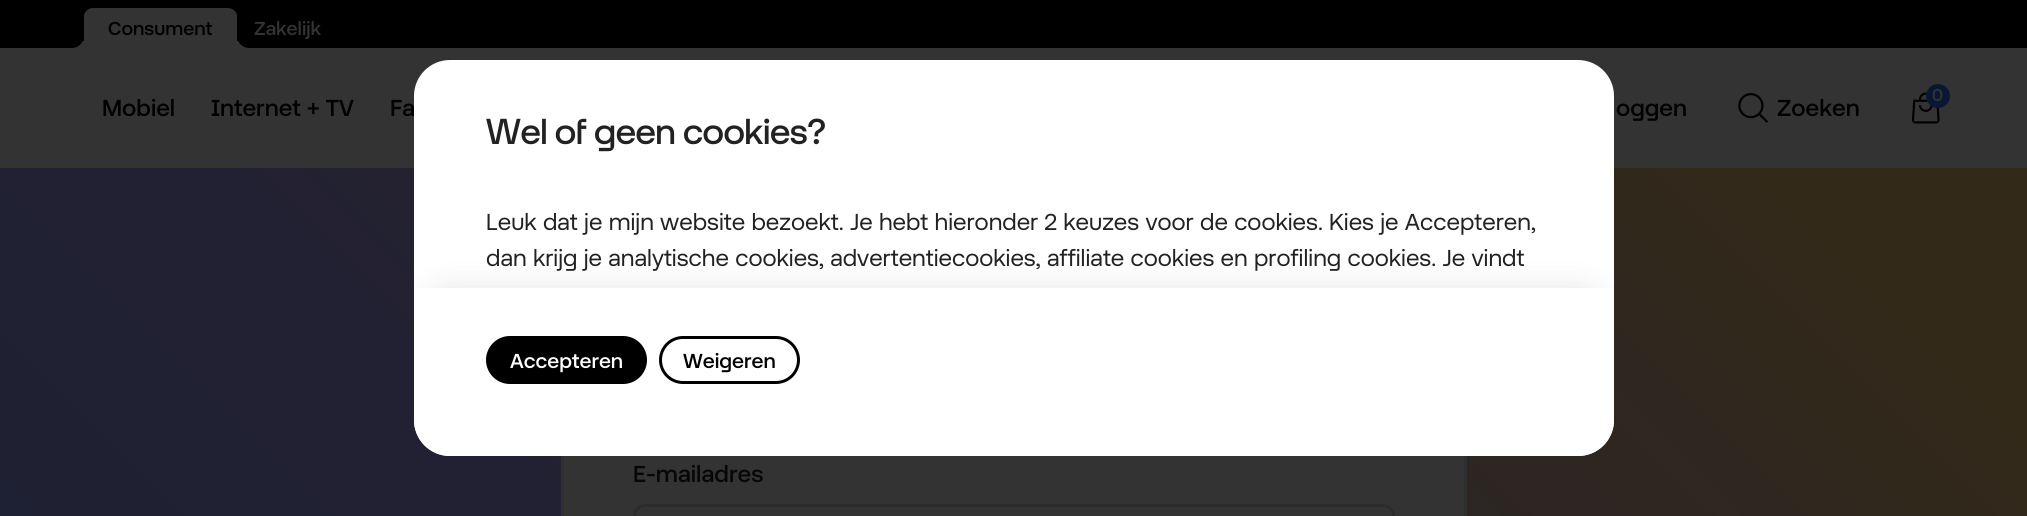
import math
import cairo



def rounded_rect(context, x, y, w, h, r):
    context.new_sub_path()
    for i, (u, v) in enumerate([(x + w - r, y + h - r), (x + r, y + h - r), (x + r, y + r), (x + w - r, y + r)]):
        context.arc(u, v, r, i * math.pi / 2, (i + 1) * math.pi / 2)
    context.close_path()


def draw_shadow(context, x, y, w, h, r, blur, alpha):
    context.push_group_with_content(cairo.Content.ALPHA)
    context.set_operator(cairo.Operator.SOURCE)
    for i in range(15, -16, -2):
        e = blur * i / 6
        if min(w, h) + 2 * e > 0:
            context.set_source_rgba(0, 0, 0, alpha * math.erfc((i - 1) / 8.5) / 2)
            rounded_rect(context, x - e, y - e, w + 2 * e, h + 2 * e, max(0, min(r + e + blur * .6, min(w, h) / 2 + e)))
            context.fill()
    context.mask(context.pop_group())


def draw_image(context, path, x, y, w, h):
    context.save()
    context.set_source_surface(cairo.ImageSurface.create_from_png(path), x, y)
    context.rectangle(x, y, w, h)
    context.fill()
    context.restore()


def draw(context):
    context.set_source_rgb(51 / 255, 51 / 255, 51 / 255)
    context.paint()
    context.set_source_rgb(0, 0, 0)
    context.rectangle(66, 0, 255, 8)
    context.fill()
    context.rectangle(0, 0, 66, 48)
    context.fill()
    context.new_path()
    context.move_to(66, 8)
    context.line_to(84, 8)
    context.line_to(84, 36)
    context.curve_to(84, 42.5, 78.5, 48, 72, 48)
    context.line_to(66, 48)
    context.close_path()
    context.fill()
    context.new_path()
    context.move_to(237, 8)
    context.line_to(255, 8)
    context.line_to(255, 48)
    context.line_to(249, 48)
    context.curve_to(242.5, 48, 237, 42.5, 237, 36)
    context.close_path()
    context.fill()
    context.save()
    context.rectangle(66, 8, 189, 40)
    context.clip()
    context.new_path()
    context.move_to(94, -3)
    context.curve_to(88, -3, 83, 2, 83, 8)
    context.line_to(83, 41)
    context.line_to(84, 41)
    context.line_to(84, 16)
    context.curve_to(84, 12, 88, 8, 93, 8)
    context.line_to(228, 8)
    context.curve_to(233, 8, 237, 12, 237, 16)
    context.line_to(237, 41)
    context.line_to(239, 41)
    context.line_to(239, 8)
    context.curve_to(239, 2, 234, -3, 228, -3)
    context.close_path()
    context.fill()
    context.restore()
    context.rectangle(255, 8, 65, 40)
    context.fill()
    context.rectangle(320, 0, 1707, 48)
    context.fill()
    draw_image(context, "images/1.png", 1911, 92, 29, 32)
    context.set_source_rgb(9 / 255, 23 / 255, 51 / 255)
    context.arc(1938, 96, 12, 0, 2 * math.pi)
    context.fill()
    draw_image(context, "images/2.png", 1738, 93, 31, 30)
    gradient = cairo.LinearGradient(1770, -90, 258, 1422)
    gradient.add_color_stop_rgba(0.08, 51 / 255, 41 / 255, 25 / 255, 1)
    gradient.add_color_stop_rgba(0.6, 34 / 255, 33 / 255, 51 / 255, 1)
    gradient.add_color_stop_rgba(1, 26 / 255, 34 / 255, 51 / 255, 1)
    context.set_source(gradient)
    context.rectangle(0, 168, 2027, 348)
    context.fill()
    context.set_source_rgb(51 / 255, 51 / 255, 51 / 255)
    context.rectangle(564, 456, 900, 60)
    context.fill()
    context.rectangle(562.5, 313.5, 903, 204)
    context.set_source_rgb(47 / 255, 47 / 255, 47 / 255)
    context.set_line_width(3)
    context.stroke()
    rounded_rect(context, 634.5, 505.5, 759, 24, 10.5)
    context.set_source_rgb(44 / 255, 44 / 255, 44 / 255)
    context.stroke()
    context.select_font_face("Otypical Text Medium")
    context.set_font_size(19.5)
    context.set_source_rgb(0, 0, 0)
    context.move_to(108, 35)
    context.show_text("Consument")
    context.set_source_rgb(51 / 255, 51 / 255, 51 / 255)
    context.move_to(254, 35)
    context.show_text("Zakelijk")
    context.set_font_size(24)
    context.set_source_rgb(0, 0, 0)
    context.move_to(102, 116)
    context.show_text("Mobiel")
    context.move_to(211, 116)
    context.show_text("Internet + TV")
    context.move_to(390, 116)
    context.show_text("Fa")
    context.set_font_size(18)
    context.set_source_rgb(51 / 255, 51 / 255, 51 / 255)
    context.move_to(1932, 101)
    context.show_text("0")
    context.set_font_size(24)
    context.set_source_rgb(0, 0, 0)
    context.move_to(1616, 116)
    context.show_text("oggen")
    context.move_to(1777, 116)
    context.show_text("Zoeken")
    context.set_source_rgb(1, 1, 1)
    rounded_rect(context, 414, 60, 1200, 396, 36)
    context.fill()
    context.select_font_face("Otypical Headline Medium")
    context.set_font_size(36)
    context.set_source_rgb(34 / 255, 34 / 255, 34 / 255)
    context.move_to(486, 144)
    context.show_text("Wel of geen cookies?")
    context.select_font_face("Otypical Text")
    context.set_font_size(24)
    context.move_to(486, 230)
    context.show_text("Leuk dat je mijn website bezoekt. Je hebt hieronder 2 keuzes voor de cookies. Kies je Accepteren,")
    context.save()
    rounded_rect(context, 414, 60, 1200, 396, 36)
    context.clip()
    context.set_source_rgb(0, 0, 0)
    draw_shadow(context, 414, 288, 1200, 168, 36, 15, 0.1)
    context.restore()
    context.move_to(486, 266)
    context.show_text("dan krijg je analytische cookies, advertentiecookies, affiliate cookies en profiling cookies. Je vindt")
    context.set_source_rgb(1, 1, 1)
    context.new_path()
    context.move_to(414, 288)
    context.line_to(1614, 288)
    context.line_to(1614, 420)
    context.curve_to(1614, 440, 1598, 456, 1578, 456)
    context.line_to(450, 456)
    context.curve_to(430, 456, 414, 440, 414, 420)
    context.close_path()
    context.fill()
    context.set_source_rgb(0, 0, 0)
    rounded_rect(context, 486, 336, 161, 48, 24)
    context.fill()
    context.select_font_face("Otypical Text Medium")
    context.set_font_size(21)
    context.set_source_rgb(1, 1, 1)
    context.move_to(510, 368)
    context.show_text("Accepteren")
    rounded_rect(context, 660.5, 337.5, 138, 45, 22.5)
    context.set_source_rgb(0, 0, 0)
    context.stroke()
    context.move_to(683, 368)
    context.show_text("Weigeren")
    context.set_font_size(24)
    context.set_source_rgb(7 / 255, 7 / 255, 7 / 255)
    context.move_to(633, 482)
    context.show_text("E-mailadres")


surface = cairo.ImageSurface(cairo.Format.RGB24, 2027, 516)
context = cairo.Context(surface)
options = cairo.FontOptions()
options.set_hint_metrics(cairo.HintMetrics.OFF)
options.set_hint_style(cairo.HintStyle.NONE)
context.set_font_options(options)
context.set_miter_limit(4)
draw(context)
surface.write_to_png("out.png")
